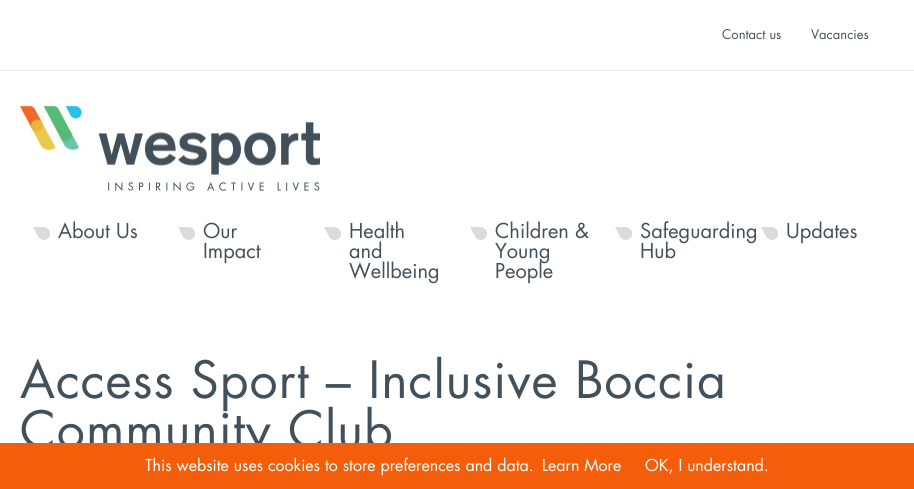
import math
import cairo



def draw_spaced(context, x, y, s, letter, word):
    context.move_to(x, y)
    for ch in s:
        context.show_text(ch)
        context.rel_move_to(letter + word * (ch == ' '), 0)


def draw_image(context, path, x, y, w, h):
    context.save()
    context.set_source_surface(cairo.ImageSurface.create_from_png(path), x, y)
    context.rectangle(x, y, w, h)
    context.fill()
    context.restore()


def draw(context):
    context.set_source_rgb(1, 1, 1)
    context.paint()
    context.set_source_rgb(233 / 255, 233 / 255, 233 / 255)
    context.rectangle(0, 70, 914, 1)
    context.fill()
    draw_image(context, "images/1.png", 20, 106, 300, 86)
    draw_image(context, "images/2.png", 33, 227, 17, 13)
    draw_image(context, "images/2.png", 178, 227, 17, 13)
    draw_image(context, "images/3.png", 324, 227, 17, 13)
    draw_image(context, "images/3.png", 470, 227, 17, 13)
    draw_image(context, "images/3.png", 615, 227, 17, 13)
    draw_image(context, "images/3.png", 761, 227, 17, 13)
    context.select_font_face("Futura")
    context.set_font_size(13)
    context.set_source_rgb(66 / 255, 80 / 255, 91 / 255)
    context.move_to(722, 39)
    context.show_text("Contact us")
    context.move_to(811, 39)
    context.show_text("Vacancies")
    context.set_font_size(20)
    context.move_to(58, 238)
    context.show_text("About Us")
    context.move_to(203, 238)
    context.show_text("Our")
    context.move_to(203, 258)
    context.show_text("Impact")
    context.move_to(349, 238)
    context.show_text("Health")
    context.move_to(349, 258)
    context.show_text("and")
    context.move_to(349, 278)
    context.show_text("Wellbeing")
    context.move_to(495, 238)
    context.show_text("Children &")
    context.move_to(495, 258)
    context.show_text("Young")
    context.move_to(495, 278)
    context.show_text("People")
    context.move_to(640, 238)
    context.show_text("Safeguarding")
    context.move_to(640, 258)
    context.show_text("Hub")
    context.move_to(786, 238)
    context.show_text("Updates")
    context.set_font_size(50)
    draw_spaced(context, 20, 398, "Access Sport – Inclusive Boccia", 1, 0)
    draw_spaced(context, 20, 448, "Community Club", 1, 0)
    context.set_source_rgb(244 / 255, 94 / 255, 11 / 255)
    context.rectangle(0, 443, 914, 46)
    context.fill()
    context.set_font_size(16)
    context.set_source_rgb(1, 1, 1)
    context.move_to(145, 471)
    context.show_text("This website uses cookies to store preferences and data.")
    context.move_to(542, 471)
    context.show_text("Learn More")
    context.move_to(645, 471)
    context.show_text("OK, I understand.")


surface = cairo.ImageSurface(cairo.Format.RGB24, 914, 489)
context = cairo.Context(surface)
options = cairo.FontOptions()
options.set_hint_metrics(cairo.HintMetrics.OFF)
options.set_hint_style(cairo.HintStyle.NONE)
context.set_font_options(options)
context.set_miter_limit(4)
draw(context)
surface.write_to_png("out.png")
